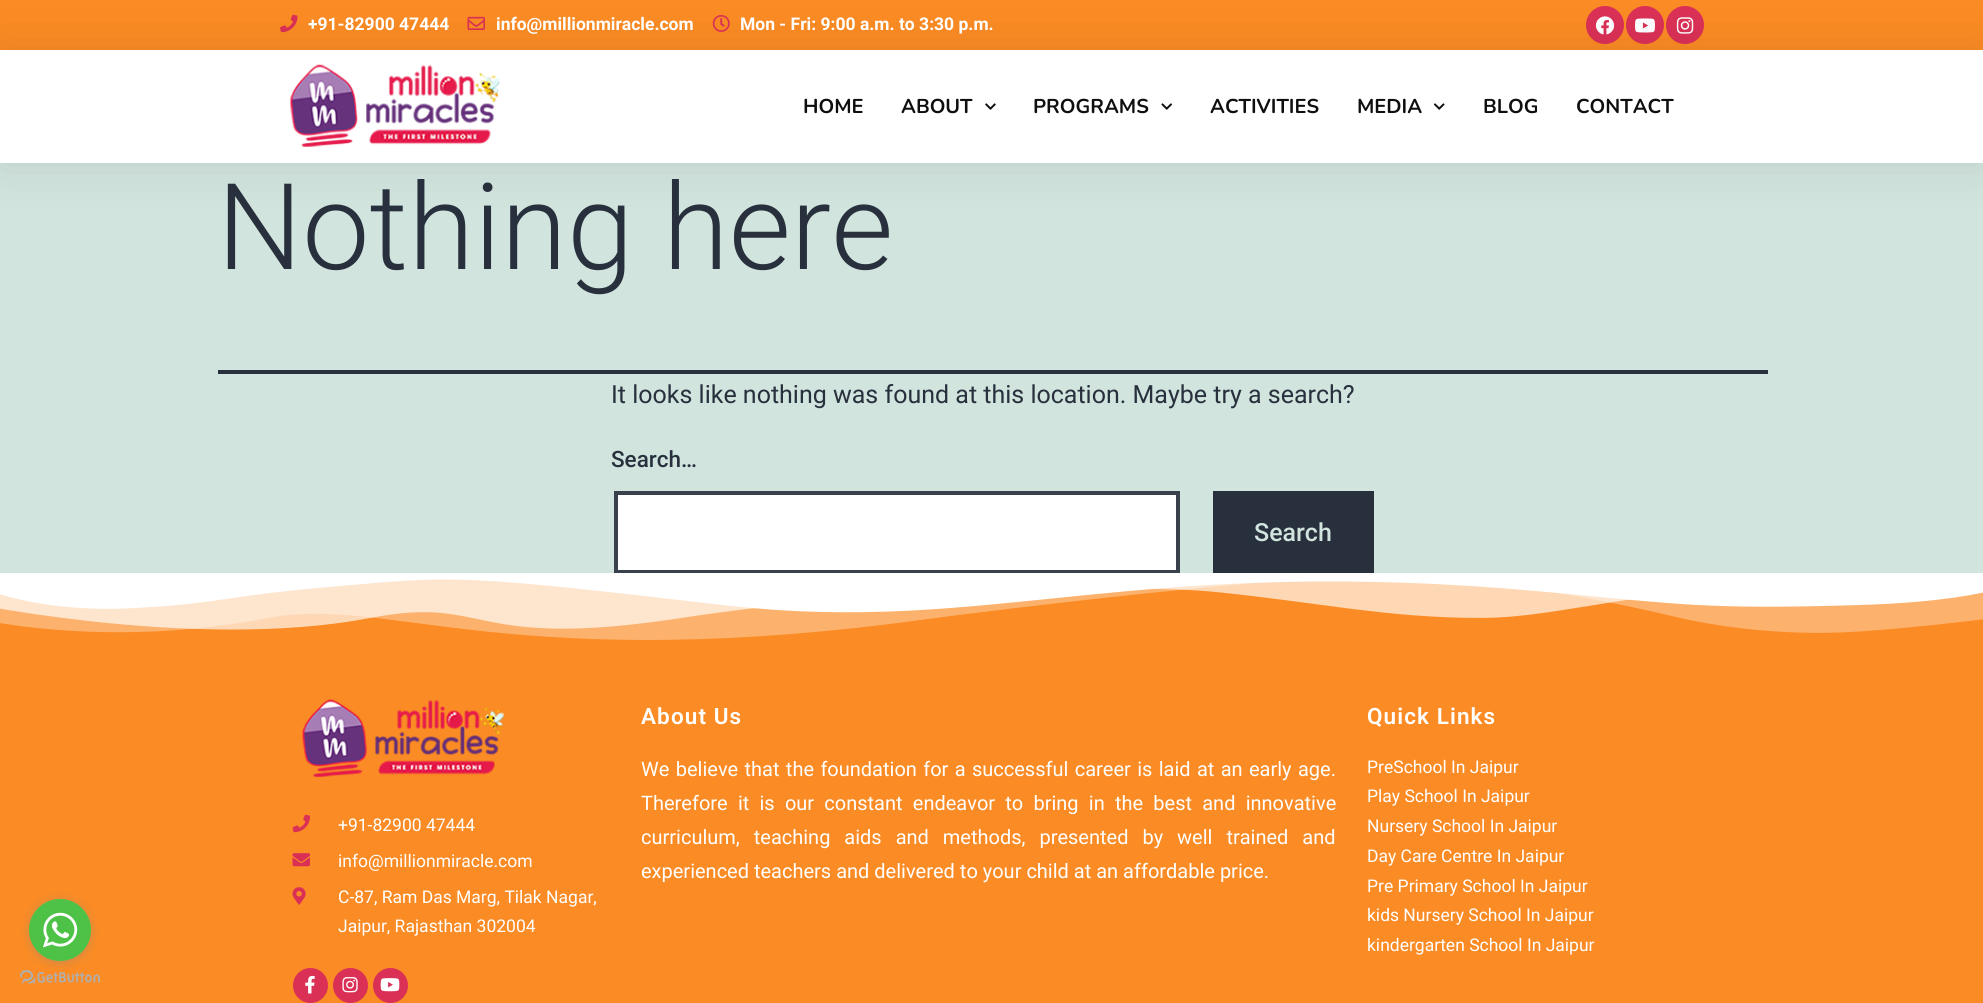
import math
import cairo



def draw_spaced(context, x, y, s, letter, word):
    context.move_to(x, y)
    for ch in s:
        context.show_text(ch)
        context.rel_move_to(letter + word * (ch == ' '), 0)


def rounded_rect(context, x, y, w, h, r):
    context.new_sub_path()
    for i, (u, v) in enumerate([(x + w - r, y + h - r), (x + r, y + h - r), (x + r, y + r), (x + w - r, y + r)]):
        context.arc(u, v, r, i * math.pi / 2, (i + 1) * math.pi / 2)
    context.close_path()


def draw_shadow(context, x, y, w, h, r, blur, alpha):
    context.push_group_with_content(cairo.Content.ALPHA)
    context.set_operator(cairo.Operator.SOURCE)
    for i in range(15, -16, -2):
        e = blur * i / 6
        if min(w, h) + 2 * e > 0:
            context.set_source_rgba(0, 0, 0, alpha * math.erfc((i - 1) / 8.5) / 2)
            rounded_rect(context, x - e, y - e, w + 2 * e, h + 2 * e, max(0, min(r + e + blur * .6, min(w, h) / 2 + e)))
            context.fill()
    context.mask(context.pop_group())


def draw_image(context, path, x, y, w, h):
    context.save()
    context.set_source_surface(cairo.ImageSurface.create_from_png(path), x, y)
    context.rectangle(x, y, w, h)
    context.fill()
    context.restore()


def draw(context):
    context.set_source_rgb(209 / 255, 228 / 255, 221 / 255)
    context.paint()
    context.set_source_rgb(251 / 255, 139 / 255, 36 / 255)
    context.rectangle(0, 0, 1983, 50)
    context.fill()
    draw_image(context, "images/1.png", 280, 14, 18, 19)
    draw_image(context, "images/2.png", 467, 16, 18, 14)
    draw_image(context, "images/3.png", 712, 15, 18, 17)
    context.set_source_rgb(219 / 255, 48 / 255, 86 / 255)
    context.arc(1605, 25, 19, 0, 2 * math.pi)
    context.fill()
    draw_image(context, "images/4.png", 1595, 16, 20, 19)
    context.arc(1645, 25, 19, 0, 2 * math.pi)
    context.fill()
    draw_image(context, "images/5.png", 1635, 18, 20, 15)
    context.arc(1685, 25, 19, 0, 2 * math.pi)
    context.fill()
    draw_image(context, "images/6.png", 1676, 17, 18, 17)
    context.set_source_rgb(0, 0, 0)
    draw_shadow(context, 0, 50, 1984, 113, 0, 24, 0.1)
    context.set_source_rgb(1, 1, 1)
    context.rectangle(0, 50, 1983, 113)
    context.fill()
    draw_image(context, "images/7.png", 290, 64, 210, 83)
    draw_image(context, "images/8.png", 985, 103, 11, 7)
    draw_image(context, "images/9.png", 1161, 103, 11, 7)
    draw_image(context, "images/10.png", 1433, 103, 12, 7)
    context.set_source_rgb(40 / 255, 48 / 255, 61 / 255)
    context.rectangle(218, 370, 1550, 4)
    context.fill()
    context.set_source_rgb(1, 1, 1)
    context.rectangle(616, 493, 562, 79)
    context.fill_preserve()
    context.set_source_rgb(57 / 255, 65 / 255, 77 / 255)
    context.set_line_width(4)
    context.stroke()
    context.set_source_rgb(40 / 255, 48 / 255, 61 / 255)
    context.rectangle(1213, 491, 161, 82)
    context.fill()
    context.set_source_rgb(251 / 255, 139 / 255, 36 / 255)
    context.rectangle(0, 579, 1983, 424)
    context.fill()
    draw_image(context, "images/12.png", 20, 970, 80, 14)
    context.set_source_rgb(136 / 255, 136 / 255, 136 / 255)
    draw_shadow(context, 29, 900, 62, 63, 31, 4.5, 0.4)
    context.set_source_rgb(77 / 255, 194 / 255, 71 / 255)
    context.arc(60, 930, 31, 0, 2 * math.pi)
    context.fill()
    draw_image(context, "images/11.png", 42, 912, 36, 36)
    draw_image(context, "images/13.png", 0, 573, 1983, 67)
    draw_image(context, "images/14.png", 302, 699, 202, 78)
    draw_image(context, "images/15.png", 292, 814, 18, 19)
    draw_image(context, "images/16.png", 292, 853, 18, 14)
    draw_image(context, "images/17.png", 292, 887, 14, 18)
    context.set_source_rgb(219 / 255, 48 / 255, 86 / 255)
    context.arc(310.5, 985.5, 17.5, 0, 2 * math.pi)
    context.fill()
    draw_image(context, "images/18.png", 305, 975, 10, 19)
    context.arc(350.5, 985.5, 17.5, 0, 2 * math.pi)
    context.fill()
    draw_image(context, "images/19.png", 342, 977, 16, 16)
    context.arc(390.5, 985.5, 17.5, 0, 2 * math.pi)
    context.fill()
    draw_image(context, "images/20.png", 380, 978, 20, 14)
    context.select_font_face("Roboto", cairo.FontSlant.NORMAL, cairo.FontWeight.BOLD)
    context.set_font_size(17.5)
    context.set_source_rgb(1, 1, 1)
    context.move_to(308, 30)
    context.show_text("+91-82900 47444")
    context.move_to(496, 30)
    context.show_text("info@millionmiracle.com")
    context.move_to(740, 30)
    context.show_text("Mon - Fri: 9:00 a.m. to 3:30 p.m.")
    context.select_font_face("Nunito", cairo.FontSlant.NORMAL, cairo.FontWeight.BOLD)
    context.set_font_size(20)
    context.set_source_rgb(15 / 255, 15 / 255, 15 / 255)
    context.move_to(803, 113)
    context.show_text("HOME")
    context.move_to(901, 113)
    context.show_text("ABOUT")
    context.move_to(1033, 113)
    context.show_text("PROGRAMS")
    context.move_to(1210, 113)
    context.show_text("ACTIVITIES")
    context.move_to(1357, 113)
    context.show_text("MEDIA")
    context.move_to(1483, 113)
    context.show_text("BLOG")
    context.move_to(1576, 113)
    context.show_text("CONTACT")
    context.select_font_face("Roboto Light")
    context.set_font_size(120)
    context.set_source_rgb(40 / 255, 48 / 255, 61 / 255)
    context.move_to(217, 269)
    context.show_text("Nothing here")
    context.select_font_face("Roboto")
    context.set_font_size(25)
    context.move_to(611, 403)
    context.show_text("It looks like nothing was found at this location. Maybe try a search?")
    context.select_font_face("Roboto Medium")
    context.set_font_size(22.5)
    context.move_to(611, 467)
    context.show_text("Search…")
    context.set_font_size(25)
    context.set_source_rgb(209 / 255, 228 / 255, 221 / 255)
    context.move_to(1254, 541)
    context.show_text("Search")
    context.select_font_face("Roboto")
    context.set_font_size(17.5)
    context.set_source_rgb(1, 1, 1)
    context.move_to(338, 831)
    context.show_text("+91-82900 47444")
    context.move_to(338, 867)
    context.show_text("info@millionmiracle.com")
    context.move_to(338, 903)
    context.show_text("C-87, Ram Das Marg, Tilak Nagar,")
    context.move_to(338, 932)
    context.show_text("Jaipur, Rajasthan 302004")
    context.select_font_face("Roboto SemiBold")
    context.set_font_size(22.5)
    draw_spaced(context, 641, 724, "About Us", 1.1, 0)
    context.select_font_face("Roboto")
    context.set_font_size(20)
    draw_spaced(context, 641, 776, "We believe that the foundation for a successful career is laid at an early age.", 0, 1.4)
    draw_spaced(context, 641, 810, "Therefore it is our constant endeavor to bring in the best and innovative", 0, 5.25)
    draw_spaced(context, 641, 844, "curriculum, teaching aids and methods, presented by well trained and", 0, 9)
    context.move_to(641, 878)
    context.show_text("experienced teachers and delivered to your child at an affordable price.")
    context.select_font_face("Roboto SemiBold")
    context.set_font_size(22.5)
    draw_spaced(context, 1367, 724, "Quick Links", 1.1, 0)
    context.select_font_face("Roboto")
    context.set_font_size(17.5)
    context.move_to(1367, 773)
    context.show_text("PreSchool In Jaipur")
    context.move_to(1367, 802)
    context.show_text("Play School In Jaipur")
    context.move_to(1367, 832)
    context.show_text("Nursery School In Jaipur")
    context.move_to(1367, 862)
    context.show_text("Day Care Centre In Jaipur")
    context.move_to(1367, 892)
    context.show_text("Pre Primary School In Jaipur")
    context.move_to(1367, 921)
    context.show_text("kids Nursery School In Jaipur")
    context.move_to(1367, 951)
    context.show_text("kindergarten School In Jaipur")


surface = cairo.ImageSurface(cairo.Format.RGB24, 1983, 1003)
context = cairo.Context(surface)
options = cairo.FontOptions()
options.set_hint_metrics(cairo.HintMetrics.OFF)
options.set_hint_style(cairo.HintStyle.NONE)
context.set_font_options(options)
context.set_miter_limit(4)
draw(context)
surface.write_to_png("out.png")
